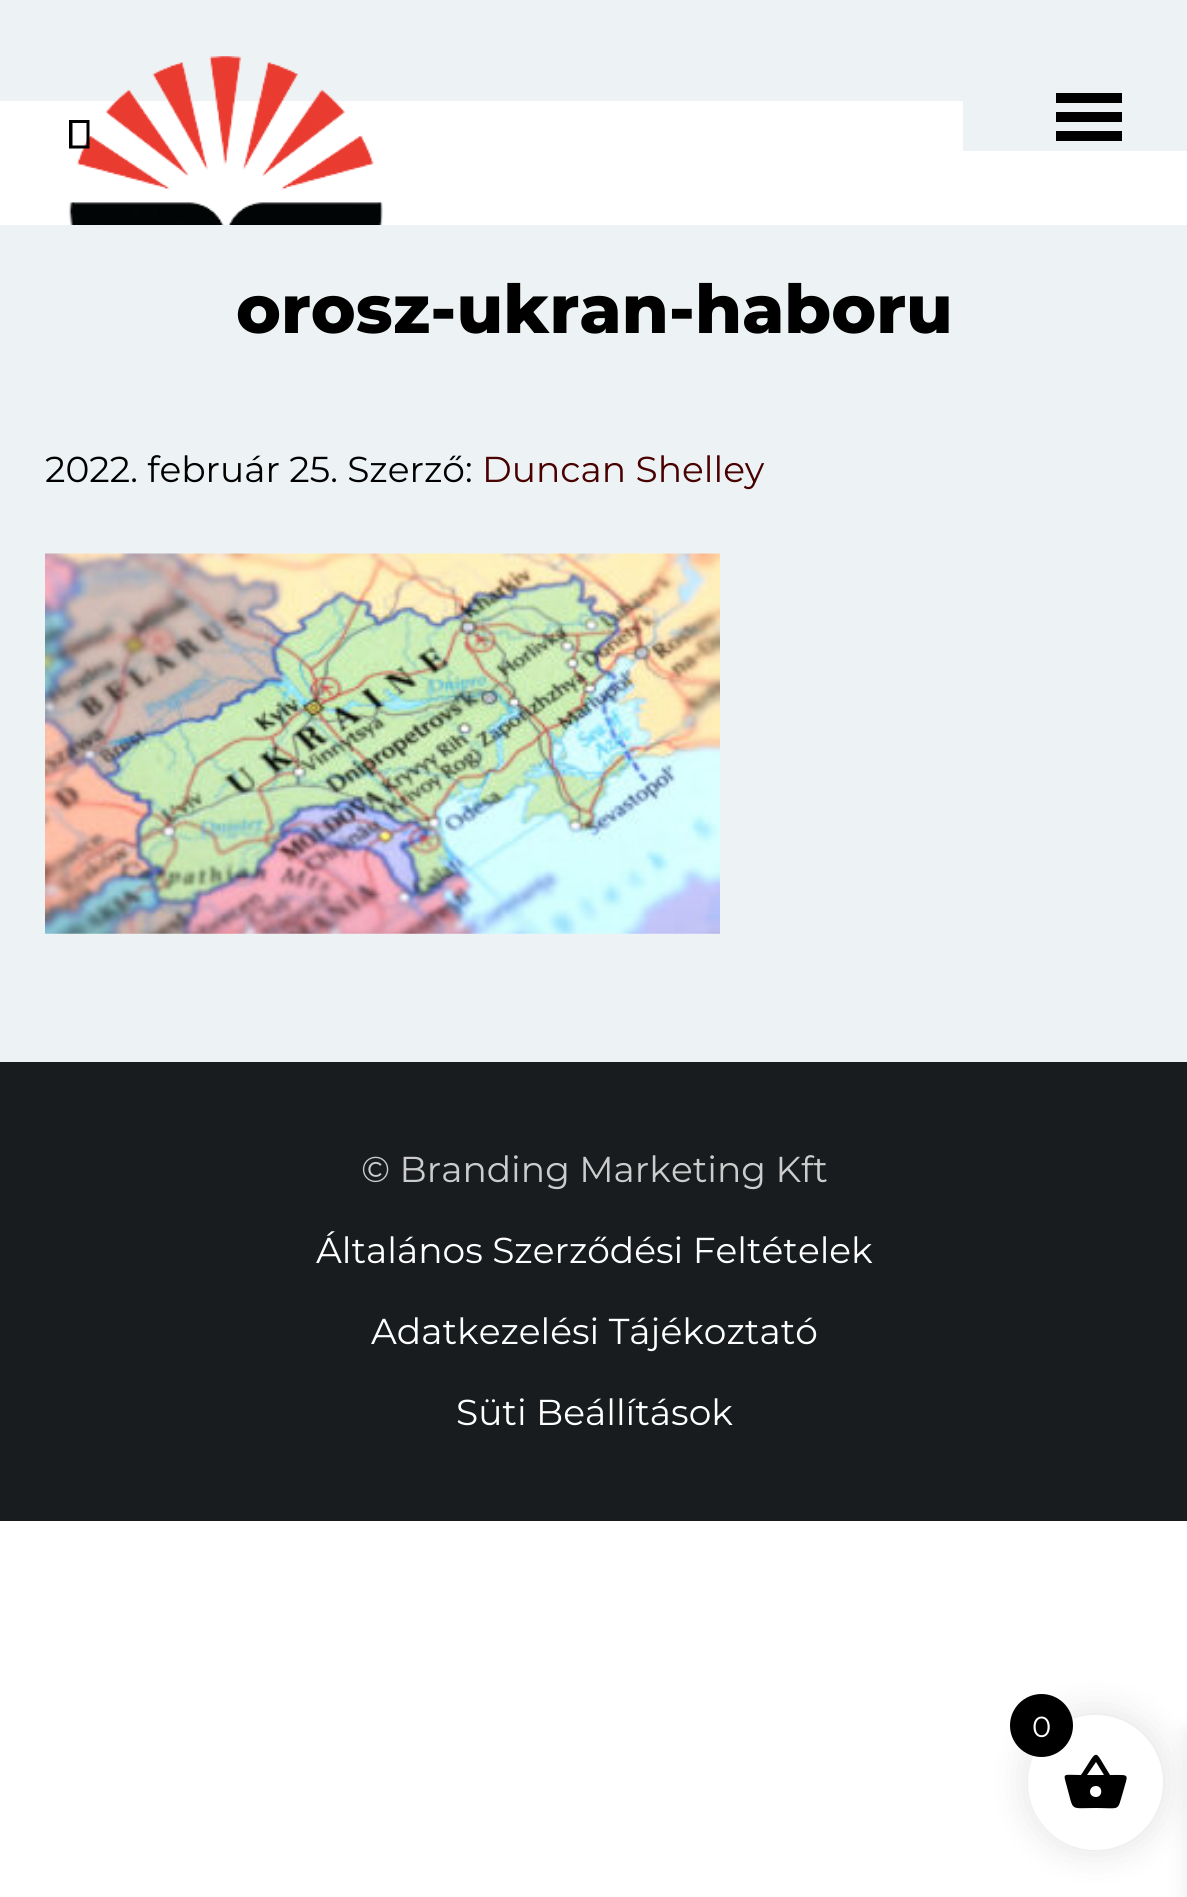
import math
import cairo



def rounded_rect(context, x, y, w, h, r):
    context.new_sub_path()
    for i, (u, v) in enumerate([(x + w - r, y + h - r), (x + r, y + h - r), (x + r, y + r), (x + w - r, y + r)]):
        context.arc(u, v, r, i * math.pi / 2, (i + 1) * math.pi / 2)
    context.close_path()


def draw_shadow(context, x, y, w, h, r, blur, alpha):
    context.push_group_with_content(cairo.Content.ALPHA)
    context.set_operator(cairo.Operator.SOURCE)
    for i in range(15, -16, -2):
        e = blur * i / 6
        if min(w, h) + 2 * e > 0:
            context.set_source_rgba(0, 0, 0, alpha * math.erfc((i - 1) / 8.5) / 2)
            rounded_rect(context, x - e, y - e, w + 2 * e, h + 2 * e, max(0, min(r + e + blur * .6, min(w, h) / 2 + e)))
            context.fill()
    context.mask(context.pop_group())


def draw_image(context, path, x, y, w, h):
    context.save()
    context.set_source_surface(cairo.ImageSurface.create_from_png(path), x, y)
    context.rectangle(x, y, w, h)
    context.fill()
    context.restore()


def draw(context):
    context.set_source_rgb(1, 1, 1)
    context.paint()
    context.set_source_rgb(237 / 255, 243 / 255, 244 / 255)
    context.rectangle(0, 0, 1187, 101)
    context.fill()
    draw_image(context, "images/1.png", 68, 56, 315, 169)
    context.rectangle(963, 101, 224, 50)
    context.fill()
    context.set_source_rgb(0, 0, 0)
    context.new_path()
    context.move_to(1056, 141)
    context.line_to(1122, 141)
    context.line_to(1122, 131)
    context.line_to(1056, 131)
    context.close_path()
    context.move_to(1056, 93)
    context.line_to(1056, 103)
    context.line_to(1122, 103)
    context.line_to(1122, 93)
    context.close_path()
    context.move_to(1056, 122)
    context.line_to(1122, 122)
    context.line_to(1122, 112)
    context.line_to(1056, 112)
    context.close_path()
    context.fill()
    context.new_path()
    context.move_to(69, 148.5)
    context.line_to(69, 120)
    context.line_to(89.5, 120)
    context.line_to(89.5, 148.5)
    context.close_path()
    context.move_to(72.5, 145.5)
    context.line_to(86.5, 145.5)
    context.line_to(86.5, 123)
    context.line_to(72.5, 123)
    context.close_path()
    context.fill()
    context.set_source_rgb(237 / 255, 243 / 255, 244 / 255)
    context.rectangle(0, 225, 1187, 837)
    context.fill()
    draw_image(context, "images/2.png", 45, 553, 675, 381)
    context.set_source_rgb(24 / 255, 28 / 255, 30 / 255)
    context.rectangle(0, 1062, 1187, 459)
    context.fill()
    context.set_source_rgb(0, 0, 0)
    draw_shadow(context, 1024, 1710, 144, 144, 72, 17, 0.1)
    draw_shadow(context, 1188, 1733, 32, 164, 0, 11, 0.1)
    context.set_source_rgb(1, 1, 1)
    context.arc(1095.5, 1782.5, 67.5, 0, 2 * math.pi)
    context.fill()
    context.set_source_rgb(0, 0, 0)
    context.new_path()
    context.move_to(1096, 1797)
    context.curve_to(1103, 1797, 1103, 1786, 1096, 1786)
    context.curve_to(1088, 1786, 1088, 1797, 1096, 1797)
    context.close_path()
    context.move_to(1087, 1775)
    context.line_to(1104, 1775)
    context.line_to(1096, 1762)
    context.close_path()
    context.move_to(1110, 1775)
    context.curve_to(1131, 1775, 1128, 1773, 1123, 1792)
    context.curve_to(1117, 1812, 1121, 1808, 1096, 1808)
    context.curve_to(1069, 1808, 1074, 1812, 1067, 1787)
    context.curve_to(1063, 1772, 1062, 1775, 1081, 1775)
    context.curve_to(1099, 1748, 1093, 1748, 1110, 1775)
    context.close_path()
    context.fill()
    context.arc(1041.5, 1725.5, 31.5, 0, 2 * math.pi)
    context.fill()
    context.select_font_face("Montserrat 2 Thin")
    context.set_font_size(67.5)
    context.move_to(236, 333)
    context.show_text("orosz-ukran-haboru")
    context.select_font_face("Montserrat Thin")
    context.set_font_size(36)
    context.move_to(45, 482)
    context.show_text("2022. február 25. Szerző:")
    context.set_source_rgb(72 / 255, 0, 0)
    context.move_to(482, 482)
    context.show_text("Duncan Shelley")
    context.set_source_rgb(204 / 255, 204 / 255, 204 / 255)
    context.move_to(361, 1182)
    context.show_text("© Branding Marketing Kft")
    context.set_source_rgb(1, 1, 1)
    context.move_to(316, 1263)
    context.show_text("Általános Szerződési Feltételek")
    context.move_to(371, 1344)
    context.show_text("Adatkezelési Tájékoztató")
    context.move_to(456, 1425)
    context.show_text("Süti Beállítások")
    context.set_font_size(29)
    context.move_to(1032, 1737)
    context.show_text("0")


surface = cairo.ImageSurface(cairo.Format.RGB24, 1187, 1897)
context = cairo.Context(surface)
options = cairo.FontOptions()
options.set_hint_metrics(cairo.HintMetrics.OFF)
options.set_hint_style(cairo.HintStyle.NONE)
context.set_font_options(options)
context.set_miter_limit(4)
draw(context)
surface.write_to_png("out.png")
